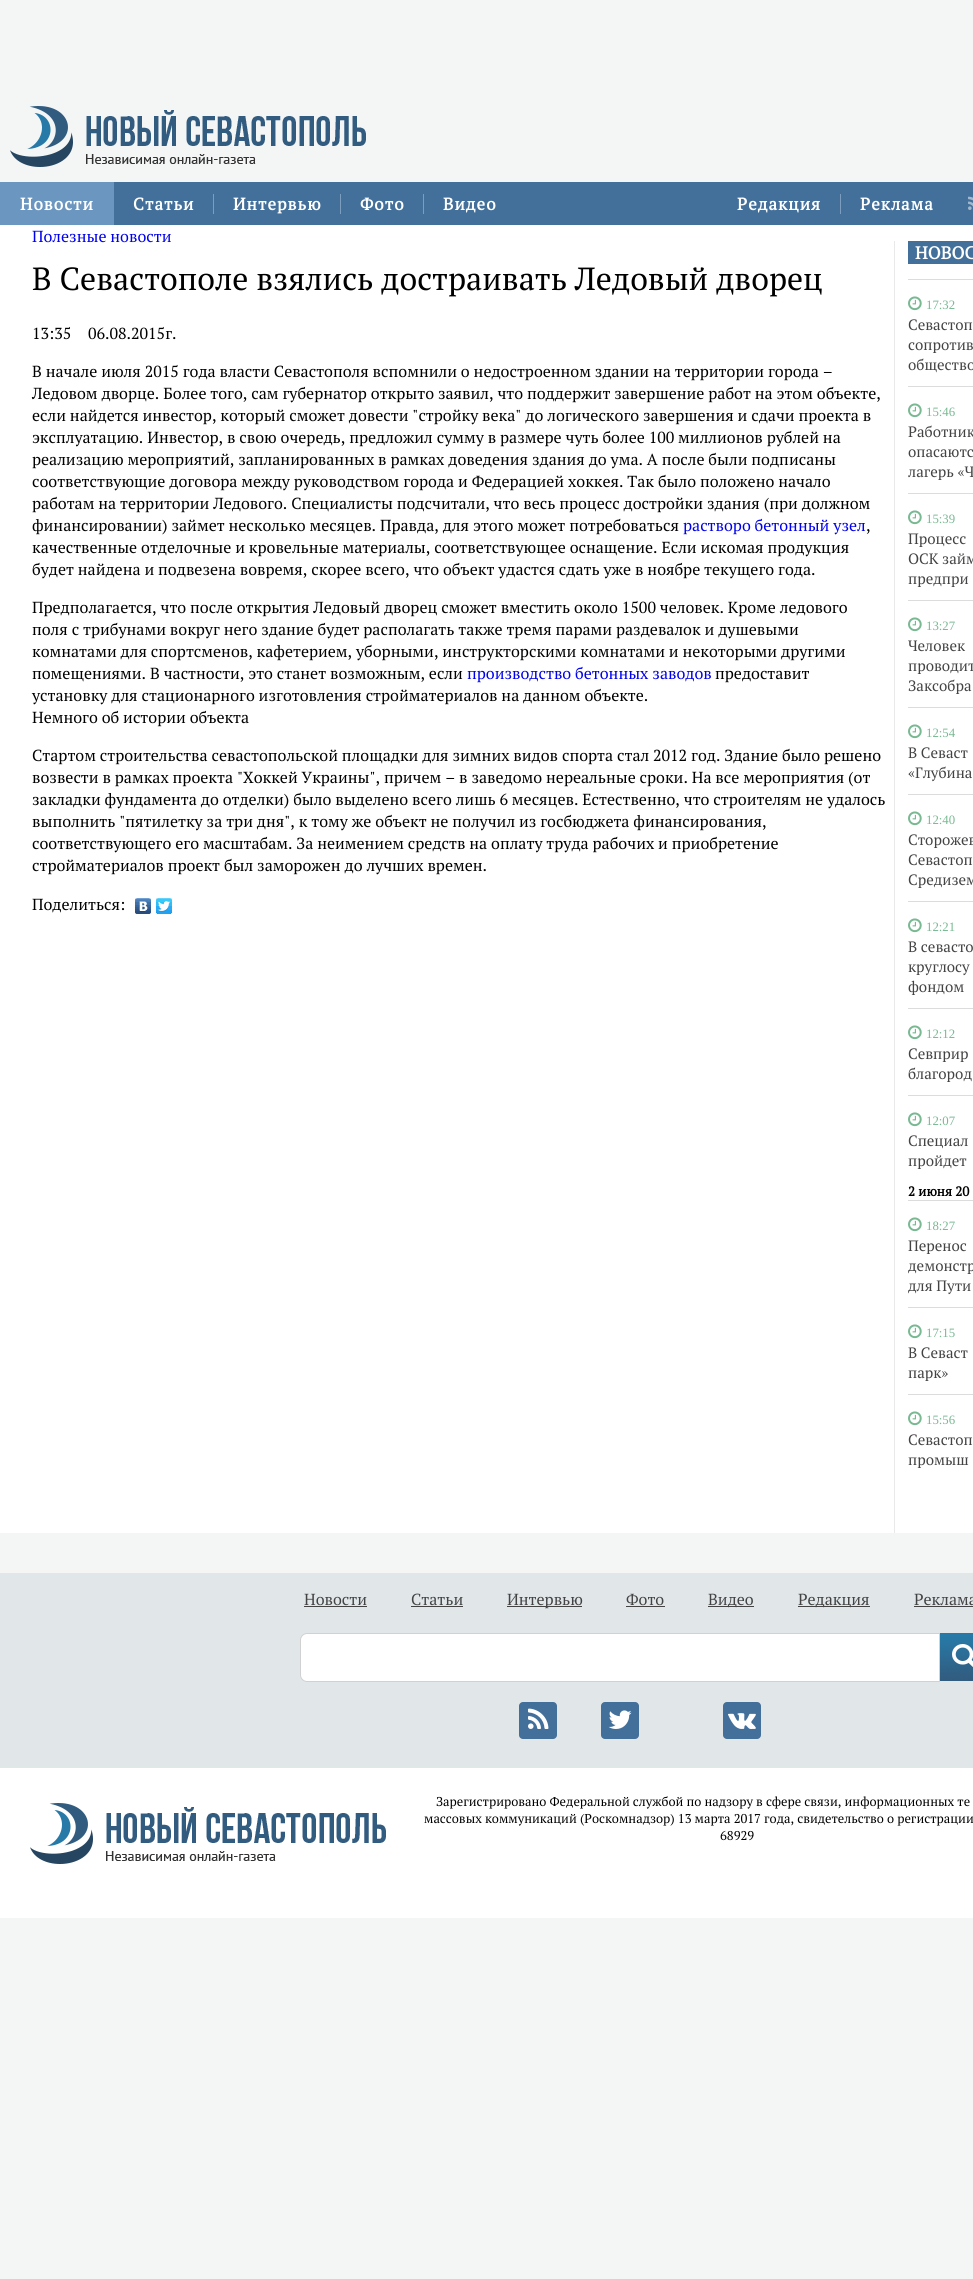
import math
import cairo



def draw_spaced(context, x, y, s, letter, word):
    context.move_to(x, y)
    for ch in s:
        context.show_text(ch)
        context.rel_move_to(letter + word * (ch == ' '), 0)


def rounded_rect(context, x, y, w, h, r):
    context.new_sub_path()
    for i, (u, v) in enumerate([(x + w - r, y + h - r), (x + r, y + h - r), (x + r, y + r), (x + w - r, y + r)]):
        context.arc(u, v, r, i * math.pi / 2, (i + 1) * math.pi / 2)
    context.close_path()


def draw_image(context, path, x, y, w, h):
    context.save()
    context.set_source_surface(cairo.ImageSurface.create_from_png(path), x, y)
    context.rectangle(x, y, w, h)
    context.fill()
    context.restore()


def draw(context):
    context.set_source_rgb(244 / 255, 246 / 255, 246 / 255)
    context.paint()
    draw_image(context, "images/1.png", 10, 106, 356, 61)
    context.set_source_rgb(67 / 255, 112 / 255, 154 / 255)
    context.rectangle(114, 182, 859, 43)
    context.fill()
    context.set_source_rgb(107 / 255, 150 / 255, 191 / 255)
    context.rectangle(0, 182, 114, 43)
    context.fill()
    context.set_source_rgb(124 / 255, 157 / 255, 188 / 255)
    context.rectangle(213, 194, 1, 20)
    context.fill()
    context.rectangle(340, 194, 1, 20)
    context.fill()
    context.rectangle(423, 194, 1, 20)
    context.fill()
    context.rectangle(840, 194, 1, 20)
    context.fill()
    draw_image(context, "images/2.png", 968, 196, 5, 14)
    context.set_source_rgb(1, 1, 1)
    context.rectangle(0, 225, 973, 1308)
    context.fill()
    draw_image(context, "images/3.png", 135, 898, 16, 16)
    draw_image(context, "images/4.png", 156, 898, 16, 16)
    context.set_source_rgb(233 / 255, 233 / 255, 233 / 255)
    context.rectangle(894, 241, 1, 1292)
    context.fill()
    context.set_source_rgb(67 / 255, 112 / 255, 154 / 255)
    context.rectangle(908, 241, 65, 23)
    context.fill()
    context.set_source_rgb(220 / 255, 220 / 255, 220 / 255)
    context.rectangle(908, 279, 65, 1)
    context.fill()
    draw_image(context, "images/5.png", 908, 296, 14, 15)
    context.rectangle(908, 386, 65, 1)
    context.fill()
    draw_image(context, "images/5.png", 908, 403, 14, 15)
    context.rectangle(908, 493, 65, 1)
    context.fill()
    draw_image(context, "images/5.png", 908, 510, 14, 15)
    context.rectangle(908, 600, 65, 1)
    context.fill()
    draw_image(context, "images/5.png", 908, 617, 14, 15)
    context.rectangle(908, 707, 65, 1)
    context.fill()
    draw_image(context, "images/5.png", 908, 724, 14, 15)
    context.rectangle(908, 794, 65, 1)
    context.fill()
    draw_image(context, "images/5.png", 908, 811, 14, 15)
    context.rectangle(908, 901, 65, 1)
    context.fill()
    draw_image(context, "images/5.png", 908, 918, 14, 15)
    context.rectangle(908, 1008, 65, 1)
    context.fill()
    draw_image(context, "images/5.png", 908, 1025, 14, 15)
    context.rectangle(908, 1095, 65, 1)
    context.fill()
    draw_image(context, "images/5.png", 908, 1112, 14, 15)
    context.rectangle(908, 1200, 65, 1)
    context.fill()
    draw_image(context, "images/5.png", 908, 1217, 14, 15)
    context.rectangle(908, 1307, 65, 1)
    context.fill()
    draw_image(context, "images/5.png", 908, 1324, 14, 15)
    context.rectangle(908, 1394, 65, 1)
    context.fill()
    draw_image(context, "images/5.png", 908, 1411, 14, 15)
    context.set_source_rgb(225 / 255, 230 / 255, 233 / 255)
    context.rectangle(0, 1573, 973, 195)
    context.fill()
    context.set_source_rgb(67 / 255, 67 / 255, 67 / 255)
    context.rectangle(304, 1606, 63, 1)
    context.fill()
    context.rectangle(411, 1606, 52, 1)
    context.fill()
    context.rectangle(507, 1606, 75, 1)
    context.fill()
    context.rectangle(626, 1606, 39, 1)
    context.fill()
    context.rectangle(708, 1606, 46, 1)
    context.fill()
    context.rectangle(798, 1606, 72, 1)
    context.fill()
    context.rectangle(914, 1606, 59, 1)
    context.fill()
    context.set_source_rgb(1, 1, 1)
    context.new_path()
    context.move_to(307, 1633.5)
    context.line_to(939.5, 1633.5)
    context.line_to(939.5, 1681.5)
    context.line_to(307, 1681.5)
    context.curve_to(303.5, 1681.5, 300.5, 1678.5, 300.5, 1675)
    context.line_to(300.5, 1640)
    context.curve_to(300.5, 1636.5, 303.5, 1633.5, 307, 1633.5)
    context.close_path()
    context.fill_preserve()
    context.set_source_rgb(210 / 255, 209 / 255, 209 / 255)
    context.set_line_width(1)
    context.stroke()
    draw_image(context, "images/6.png", 940, 1633, 33, 48)
    context.set_source_rgb(67 / 255, 112 / 255, 154 / 255)
    rounded_rect(context, 519, 1702, 38, 37, 4)
    context.fill()
    draw_image(context, "images/7.png", 528, 1708, 21, 21)
    rounded_rect(context, 601, 1702, 38, 37, 4)
    context.fill()
    draw_image(context, "images/8.png", 608, 1710, 24, 19)
    rounded_rect(context, 723, 1702, 38, 37, 4)
    context.fill()
    draw_image(context, "images/9.png", 728, 1713, 28, 16)
    context.set_source_rgb(1, 1, 1)
    context.rectangle(0, 1768, 973, 150)
    context.fill()
    draw_image(context, "images/10.png", 30, 1803, 356, 61)
    context.select_font_face("PT Serif", cairo.FontSlant.NORMAL, cairo.FontWeight.BOLD)
    context.set_font_size(17)
    draw_spaced(context, 20, 210, "Новости", 1, 0)
    draw_spaced(context, 133, 210, "Статьи", 1, 0)
    draw_spaced(context, 233, 210, "Интервью", 1, 0)
    draw_spaced(context, 360, 210, "Фото", 1, 0)
    draw_spaced(context, 443, 210, "Видео", 1, 0)
    draw_spaced(context, 737, 210, "Редакция", 1, 0)
    draw_spaced(context, 860, 210, "Реклама", 1, 0)
    context.select_font_face("PT Serif")
    context.set_font_size(16)
    context.set_source_rgb(0, 0, 238 / 255)
    context.move_to(32, 242)
    context.show_text("Полезные новости")
    context.set_font_size(32)
    context.set_source_rgb(0, 0, 0)
    context.move_to(32, 290)
    context.show_text("В Севастополе взялись достраивать Ледовый дворец")
    context.set_font_size(16)
    context.move_to(32, 339)
    context.show_text("13:35")
    context.move_to(88, 339)
    context.show_text("06.08.2015г.")
    context.move_to(32, 377)
    context.show_text("В начале июля 2015 года власти Севастополя вспомнили о недостроенном здании на территории города –")
    context.move_to(32, 399)
    context.show_text("Ледовом дворце. Более того, сам губернатор открыто заявил, что поддержит завершение работ на этом объекте,")
    context.move_to(32, 421)
    context.show_text("если найдется инвестор, который сможет довести \"стройку века\" до логического завершения и сдачи проекта в")
    context.move_to(32, 443)
    context.show_text("эксплуатацию. Инвестор, в свою очередь, предложил сумму в размере чуть более 100 миллионов рублей на")
    context.move_to(32, 465)
    context.show_text("реализацию мероприятий, запланированных в рамках доведения здания до ума. А после были подписаны")
    context.move_to(32, 487)
    context.show_text("соответствующие договора между руководством города и Федерацией хоккея. Так было положено начало")
    context.move_to(32, 509)
    context.show_text("работам на территории Ледового. Специалисты подсчитали, что весь процесс достройки здания (при должном")
    context.move_to(32, 531)
    context.show_text("финансировании) займет несколько месяцев. Правда, для этого может потребоваться")
    context.set_source_rgb(0, 0, 238 / 255)
    context.move_to(683, 531)
    context.show_text("растворо бетонный узел")
    context.set_source_rgb(0, 0, 0)
    context.move_to(866, 531)
    context.show_text(",")
    context.move_to(32, 553)
    context.show_text("качественные отделочные и кровельные материалы, соответствующее оснащение. Если искомая продукция")
    context.move_to(32, 575)
    context.show_text("будет найдена и подвезена вовремя, скорее всего, что объект удастся сдать уже в ноябре текущего года.")
    context.move_to(32, 613)
    context.show_text("Предполагается, что после открытия Ледовый дворец сможет вместить около 1500 человек. Кроме ледового")
    context.move_to(32, 635)
    context.show_text("поля с трибунами вокруг него здание будет располагать также тремя парами раздевалок и душевыми")
    context.move_to(32, 657)
    context.show_text("комнатами для спортсменов, кафетерием, уборными, инструкторскими комнатами и некоторыми другими")
    context.move_to(32, 679)
    context.show_text("помещениями. В частности, это станет возможным, если")
    context.set_source_rgb(0, 0, 238 / 255)
    context.move_to(467, 679)
    context.show_text("производство бетонных заводов")
    context.set_source_rgb(0, 0, 0)
    context.move_to(715, 679)
    context.show_text("предоставит")
    context.move_to(32, 701)
    context.show_text("установку для стационарного изготовления стройматериалов на данном объекте.")
    context.move_to(32, 723)
    context.show_text("Немного об истории объекта")
    context.move_to(32, 761)
    context.show_text("Стартом строительства севастопольской площадки для зимних видов спорта стал 2012 год. Здание было решено")
    context.move_to(32, 783)
    context.show_text("возвести в рамках проекта \"Хоккей Украины\", причем – в заведомо нереальные сроки. На все мероприятия (от")
    context.move_to(32, 805)
    context.show_text("закладки фундамента до отделки) было выделено всего лишь 6 месяцев. Естественно, что строителям не удалось")
    context.move_to(32, 827)
    context.show_text("выполнить \"пятилетку за три дня\", к тому же объект не получил из госбюджета финансирования,")
    context.move_to(32, 849)
    context.show_text("соответствующего его масштабам. За неимением средств на оплату труда рабочих и приобретение")
    context.move_to(32, 871)
    context.show_text("стройматериалов проект был заморожен до лучших времен.")
    context.move_to(32, 910)
    context.show_text("Поделиться:")
    context.select_font_face("PT Serif", cairo.FontSlant.NORMAL, cairo.FontWeight.BOLD)
    context.set_font_size(17.5)
    context.set_source_rgb(1, 1, 1)
    context.move_to(915, 259)
    context.show_text("НОВОС")
    context.select_font_face("Liberation Serif")
    context.set_font_size(12.8)
    context.set_source_rgb(120 / 255, 185 / 255, 146 / 255)
    context.move_to(926, 309)
    context.show_text("17:32")
    context.select_font_face("PT Serif")
    context.set_font_size(15)
    context.set_source_rgb(67 / 255, 67 / 255, 67 / 255)
    context.move_to(908, 330)
    context.show_text("Севастоп")
    context.move_to(908, 350)
    context.show_text("сопротив")
    context.move_to(908, 370)
    context.show_text("общество")
    context.select_font_face("Liberation Serif")
    context.set_font_size(12.8)
    context.set_source_rgb(120 / 255, 185 / 255, 146 / 255)
    context.move_to(926, 416)
    context.show_text("15:46")
    context.select_font_face("PT Serif")
    context.set_font_size(15)
    context.set_source_rgb(67 / 255, 67 / 255, 67 / 255)
    context.move_to(908, 437)
    context.show_text("Работник")
    context.move_to(908, 457)
    context.show_text("опасаютс")
    context.move_to(908, 477)
    context.show_text("лагерь «Ч")
    context.select_font_face("Liberation Serif")
    context.set_font_size(12.8)
    context.set_source_rgb(120 / 255, 185 / 255, 146 / 255)
    context.move_to(926, 523)
    context.show_text("15:39")
    context.select_font_face("PT Serif")
    context.set_font_size(15)
    context.set_source_rgb(67 / 255, 67 / 255, 67 / 255)
    context.move_to(908, 544)
    context.show_text("Процесс")
    context.move_to(908, 564)
    context.show_text("ОСК займ")
    context.move_to(908, 584)
    context.show_text("предпри")
    context.select_font_face("Liberation Serif")
    context.set_font_size(12.8)
    context.set_source_rgb(120 / 255, 185 / 255, 146 / 255)
    context.move_to(926, 630)
    context.show_text("13:27")
    context.select_font_face("PT Serif")
    context.set_font_size(15)
    context.set_source_rgb(67 / 255, 67 / 255, 67 / 255)
    context.move_to(908, 651)
    context.show_text("Человек")
    context.move_to(908, 671)
    context.show_text("проводит")
    context.move_to(908, 691)
    context.show_text("Заксобра")
    context.select_font_face("Liberation Serif")
    context.set_font_size(12.8)
    context.set_source_rgb(120 / 255, 185 / 255, 146 / 255)
    context.move_to(926, 737)
    context.show_text("12:54")
    context.select_font_face("PT Serif")
    context.set_font_size(15)
    context.set_source_rgb(67 / 255, 67 / 255, 67 / 255)
    context.move_to(908, 758)
    context.show_text("В Севаст")
    context.move_to(908, 778)
    context.show_text("«Глубина")
    context.select_font_face("Liberation Serif")
    context.set_font_size(12.8)
    context.set_source_rgb(120 / 255, 185 / 255, 146 / 255)
    context.move_to(926, 824)
    context.show_text("12:40")
    context.select_font_face("PT Serif")
    context.set_font_size(15)
    context.set_source_rgb(67 / 255, 67 / 255, 67 / 255)
    context.move_to(908, 845)
    context.show_text("Сторожев")
    context.move_to(908, 865)
    context.show_text("Севастоп")
    context.move_to(908, 885)
    context.show_text("Средизем")
    context.select_font_face("Liberation Serif")
    context.set_font_size(12.8)
    context.set_source_rgb(120 / 255, 185 / 255, 146 / 255)
    context.move_to(926, 931)
    context.show_text("12:21")
    context.select_font_face("PT Serif")
    context.set_font_size(15)
    context.set_source_rgb(67 / 255, 67 / 255, 67 / 255)
    context.move_to(908, 952)
    context.show_text("В севасто")
    context.move_to(908, 972)
    context.show_text("круглосу")
    context.move_to(908, 992)
    context.show_text("фондом")
    context.select_font_face("Liberation Serif")
    context.set_font_size(12.8)
    context.set_source_rgb(120 / 255, 185 / 255, 146 / 255)
    context.move_to(926, 1038)
    context.show_text("12:12")
    context.select_font_face("PT Serif")
    context.set_font_size(15)
    context.set_source_rgb(67 / 255, 67 / 255, 67 / 255)
    context.move_to(908, 1059)
    context.show_text("Севприр")
    context.move_to(908, 1079)
    context.show_text("благород")
    context.select_font_face("Liberation Serif")
    context.set_font_size(12.8)
    context.set_source_rgb(120 / 255, 185 / 255, 146 / 255)
    context.move_to(926, 1125)
    context.show_text("12:07")
    context.select_font_face("PT Serif")
    context.set_font_size(15)
    context.set_source_rgb(67 / 255, 67 / 255, 67 / 255)
    context.move_to(908, 1146)
    context.show_text("Специал")
    context.move_to(908, 1166)
    context.show_text("пройдет")
    context.select_font_face("PT Serif", cairo.FontSlant.NORMAL, cairo.FontWeight.BOLD)
    context.set_font_size(13.25)
    context.set_source_rgb(0, 0, 0)
    context.move_to(908, 1196)
    context.show_text("2 июня 20")
    context.select_font_face("Liberation Serif")
    context.set_font_size(12.8)
    context.set_source_rgb(120 / 255, 185 / 255, 146 / 255)
    context.move_to(926, 1230)
    context.show_text("18:27")
    context.select_font_face("PT Serif")
    context.set_font_size(15)
    context.set_source_rgb(67 / 255, 67 / 255, 67 / 255)
    context.move_to(908, 1251)
    context.show_text("Перенос")
    context.move_to(908, 1271)
    context.show_text("демонстр")
    context.move_to(908, 1291)
    context.show_text("для Пути")
    context.select_font_face("Liberation Serif")
    context.set_font_size(12.8)
    context.set_source_rgb(120 / 255, 185 / 255, 146 / 255)
    context.move_to(926, 1337)
    context.show_text("17:15")
    context.select_font_face("PT Serif")
    context.set_font_size(15)
    context.set_source_rgb(67 / 255, 67 / 255, 67 / 255)
    context.move_to(908, 1358)
    context.show_text("В Севаст")
    context.move_to(908, 1378)
    context.show_text("парк»")
    context.select_font_face("Liberation Serif")
    context.set_font_size(12.8)
    context.set_source_rgb(120 / 255, 185 / 255, 146 / 255)
    context.move_to(926, 1424)
    context.show_text("15:56")
    context.select_font_face("PT Serif")
    context.set_font_size(15)
    context.set_source_rgb(67 / 255, 67 / 255, 67 / 255)
    context.move_to(908, 1445)
    context.show_text("Севастоп")
    context.move_to(908, 1465)
    context.show_text("промыш")
    context.set_font_size(16)
    context.move_to(304, 1605)
    context.show_text("Новости")
    context.move_to(411, 1605)
    context.show_text("Статьи")
    context.move_to(507, 1605)
    context.show_text("Интервью")
    context.move_to(626, 1605)
    context.show_text("Фото")
    context.move_to(708, 1605)
    context.show_text("Видео")
    context.move_to(798, 1605)
    context.show_text("Редакция")
    context.move_to(914, 1605)
    context.show_text("Реклама")
    context.set_font_size(12.8)
    context.set_source_rgb(0, 0, 0)
    context.move_to(436, 1806)
    context.show_text("Зарегистрировано Федеральной службой по надзору в сфере связи, информационных те")
    context.move_to(424, 1823)
    context.show_text("массовых коммуникаций (Роскомнадзор) 13 марта 2017 года, свидетельство о регистрации")
    context.move_to(720, 1840)
    context.show_text("68929")


surface = cairo.ImageSurface(cairo.Format.RGB24, 973, 2279)
context = cairo.Context(surface)
options = cairo.FontOptions()
options.set_hint_metrics(cairo.HintMetrics.OFF)
options.set_hint_style(cairo.HintStyle.NONE)
context.set_font_options(options)
context.set_miter_limit(4)
draw(context)
surface.write_to_png("out.png")
